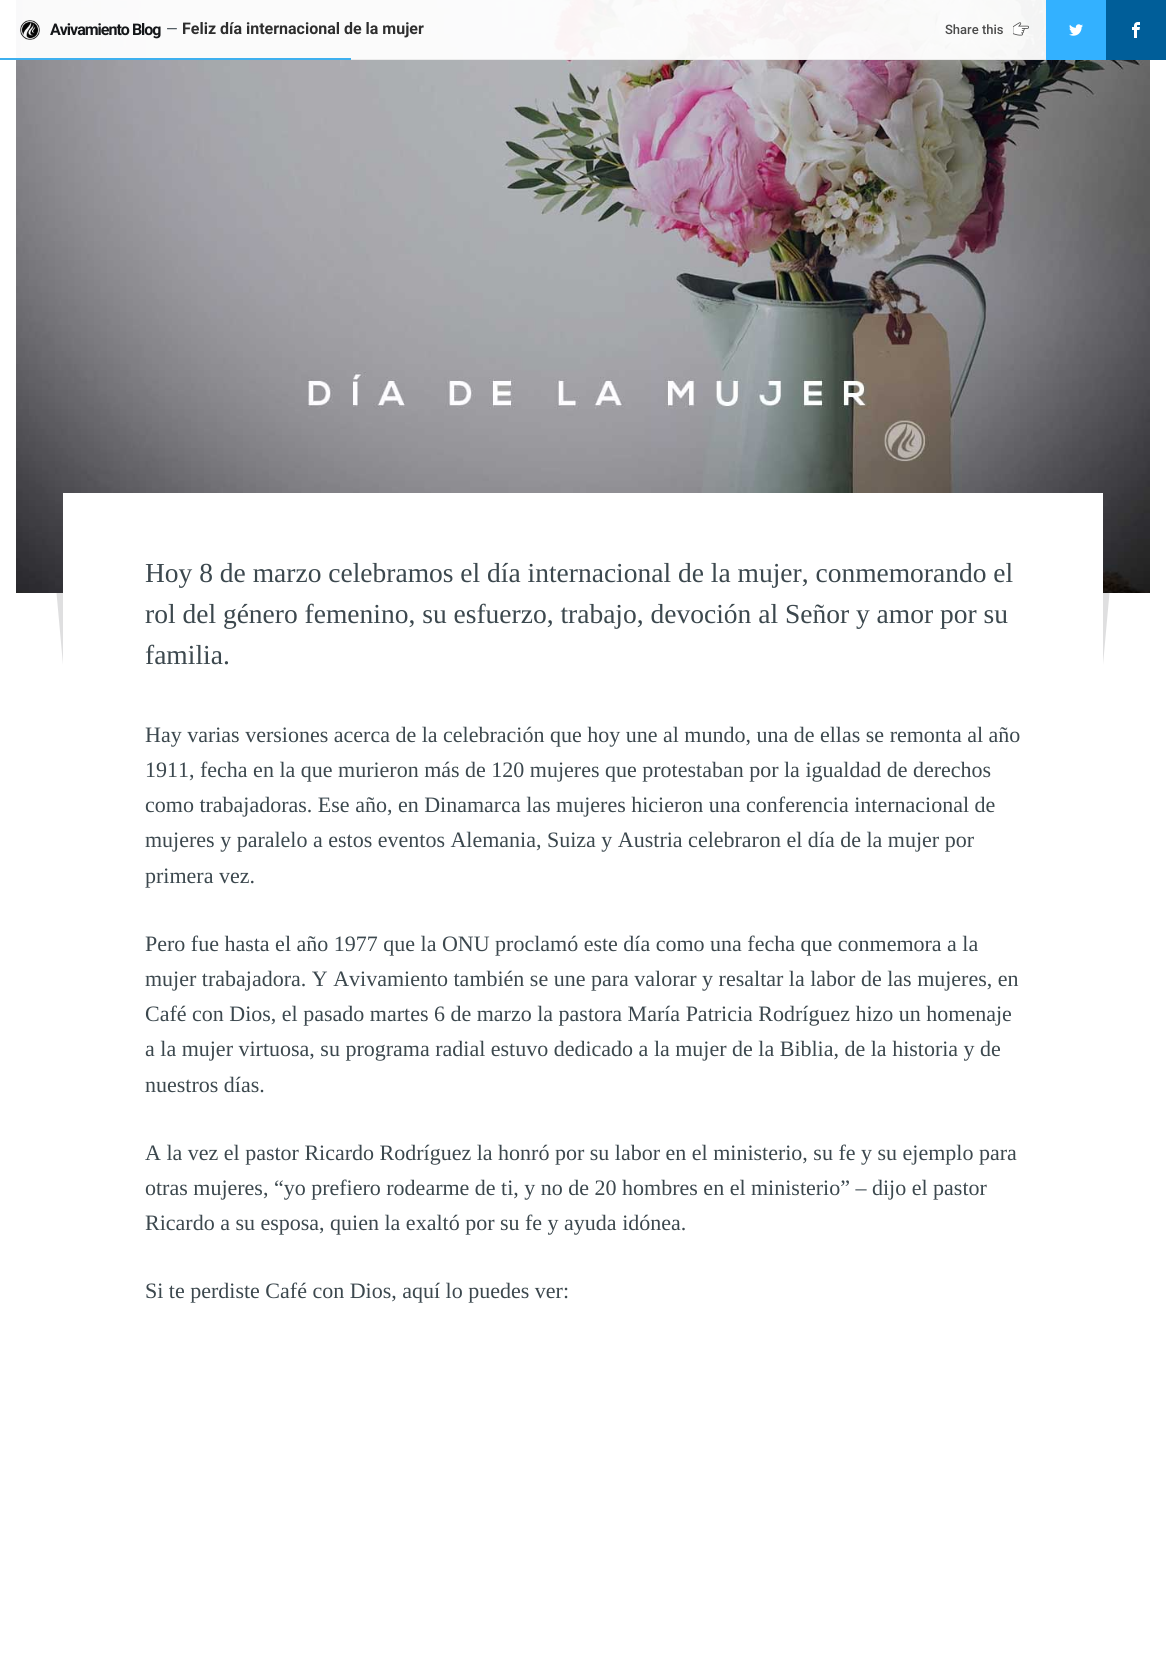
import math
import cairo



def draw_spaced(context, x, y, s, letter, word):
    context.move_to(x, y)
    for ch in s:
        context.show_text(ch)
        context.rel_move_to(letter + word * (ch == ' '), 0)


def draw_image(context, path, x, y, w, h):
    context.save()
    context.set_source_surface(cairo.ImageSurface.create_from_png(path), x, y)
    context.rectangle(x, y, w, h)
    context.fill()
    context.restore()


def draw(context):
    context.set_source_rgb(1, 1, 1)
    context.paint()
    context.set_source_rgb(223 / 255, 223 / 255, 224 / 255)
    context.new_path()
    context.move_to(49, 510)
    context.line_to(69, 508)
    context.line_to(87, 707)
    context.line_to(67, 709)
    context.close_path()
    context.fill()
    context.new_path()
    context.move_to(1097, 508)
    context.line_to(1117, 510)
    context.line_to(1099, 709)
    context.line_to(1079, 707)
    context.close_path()
    context.fill()
    draw_image(context, "images/5.png", 16, 0, 1134, 593)
    context.set_source_rgba(1, 1, 1, 0.95)
    context.rectangle(16, 0, 1030, 60)
    context.fill()
    context.set_source_rgba(0, 0, 0, 0.06)
    context.rectangle(351, 59, 695, 1)
    context.fill()
    draw_image(context, "images/1.png", 20, 20, 20, 20)
    draw_image(context, "images/2.png", 1013, 22, 16, 14)
    context.set_source_rgb(51 / 255, 177 / 255, 1)
    context.rectangle(1046, 0, 60, 60)
    context.fill()
    draw_image(context, "images/3.png", 1069, 24, 14, 12)
    context.set_source_rgb(0, 94 / 255, 153 / 255)
    context.rectangle(1106, 0, 60, 60)
    context.fill()
    draw_image(context, "images/4.png", 1132, 22, 8, 16)
    context.set_source_rgb(62 / 255, 176 / 255, 239 / 255)
    context.rectangle(0, 58, 351, 2)
    context.fill()
    context.set_source_rgb(1, 1, 1)
    context.rectangle(63, 493, 1040, 216)
    context.fill()
    context.select_font_face("Roboto", cairo.FontSlant.NORMAL, cairo.FontWeight.BOLD)
    context.set_font_size(16)
    context.set_source_rgb(21 / 255, 23 / 255, 26 / 255)
    draw_spaced(context, 50, 35, "Avivamiento Blog", -1, 0)
    context.select_font_face("Roboto")
    context.set_font_size(15)
    context.set_source_rgb(60 / 255, 72 / 255, 78 / 255)
    context.move_to(166, 34)
    context.show_text("—")
    context.select_font_face("Roboto", cairo.FontSlant.NORMAL, cairo.FontWeight.BOLD)
    context.set_font_size(16)
    context.set_source_rgb(46 / 255, 46 / 255, 46 / 255)
    context.move_to(182, 34)
    context.show_text("Feliz día internacional de la mujer")
    context.select_font_face("Roboto Medium")
    context.set_font_size(13)
    context.set_source_rgb(75 / 255, 75 / 255, 75 / 255)
    context.move_to(945, 34)
    context.show_text("Share this")
    context.select_font_face("Liberation Serif")
    context.set_font_size(27.5)
    context.set_source_rgb(60 / 255, 72 / 255, 78 / 255)
    context.move_to(145, 582)
    context.show_text("Hoy 8 de marzo celebramos el día internacional de la mujer, conmemorando el")
    context.move_to(145, 623)
    context.show_text("rol del género femenino, su esfuerzo, trabajo, devoción al Señor y amor por su")
    context.move_to(145, 664)
    context.show_text("familia.")
    context.set_font_size(22)
    context.move_to(145, 742)
    context.show_text("Hay varias versiones acerca de la celebración que hoy une al mundo, una de ellas se remonta al año")
    context.move_to(145, 777)
    context.show_text("1911, fecha en la que murieron más de 120 mujeres que protestaban por la igualdad de derechos")
    context.move_to(145, 812)
    context.show_text("como trabajadoras. Ese año, en Dinamarca las mujeres hicieron una conferencia internacional de")
    context.move_to(145, 847)
    context.show_text("mujeres y paralelo a estos eventos Alemania, Suiza y Austria celebraron el día de la mujer por")
    context.move_to(145, 883)
    context.show_text("primera vez.")
    context.move_to(145, 951)
    context.show_text("Pero fue hasta el año 1977 que la ONU proclamó este día como una fecha que conmemora a la")
    context.move_to(145, 986)
    context.show_text("mujer trabajadora. Y Avivamiento también se une para valorar y resaltar la labor de las mujeres, en")
    context.move_to(145, 1021)
    context.show_text("Café con Dios, el pasado martes 6 de marzo la pastora María Patricia Rodríguez hizo un homenaje")
    context.move_to(145, 1056)
    context.show_text("a la mujer virtuosa, su programa radial estuvo dedicado a la mujer de la Biblia, de la historia y de")
    context.move_to(145, 1092)
    context.show_text("nuestros días.")
    context.move_to(145, 1160)
    context.show_text("A la vez el pastor Ricardo Rodríguez la honró por su labor en el ministerio, su fe y su ejemplo para")
    context.move_to(145, 1195)
    context.show_text("otras mujeres, “yo prefiero rodearme de ti, y no de 20 hombres en el ministerio” – dijo el pastor")
    context.move_to(145, 1230)
    context.show_text("Ricardo a su esposa, quien la exaltó por su fe y ayuda idónea.")
    context.move_to(145, 1298)
    context.show_text("Si te perdiste Café con Dios, aquí lo puedes ver:")


surface = cairo.ImageSurface(cairo.Format.RGB24, 1166, 1678)
context = cairo.Context(surface)
options = cairo.FontOptions()
options.set_hint_metrics(cairo.HintMetrics.OFF)
options.set_hint_style(cairo.HintStyle.NONE)
context.set_font_options(options)
context.set_miter_limit(4)
draw(context)
surface.write_to_png("out.png")
